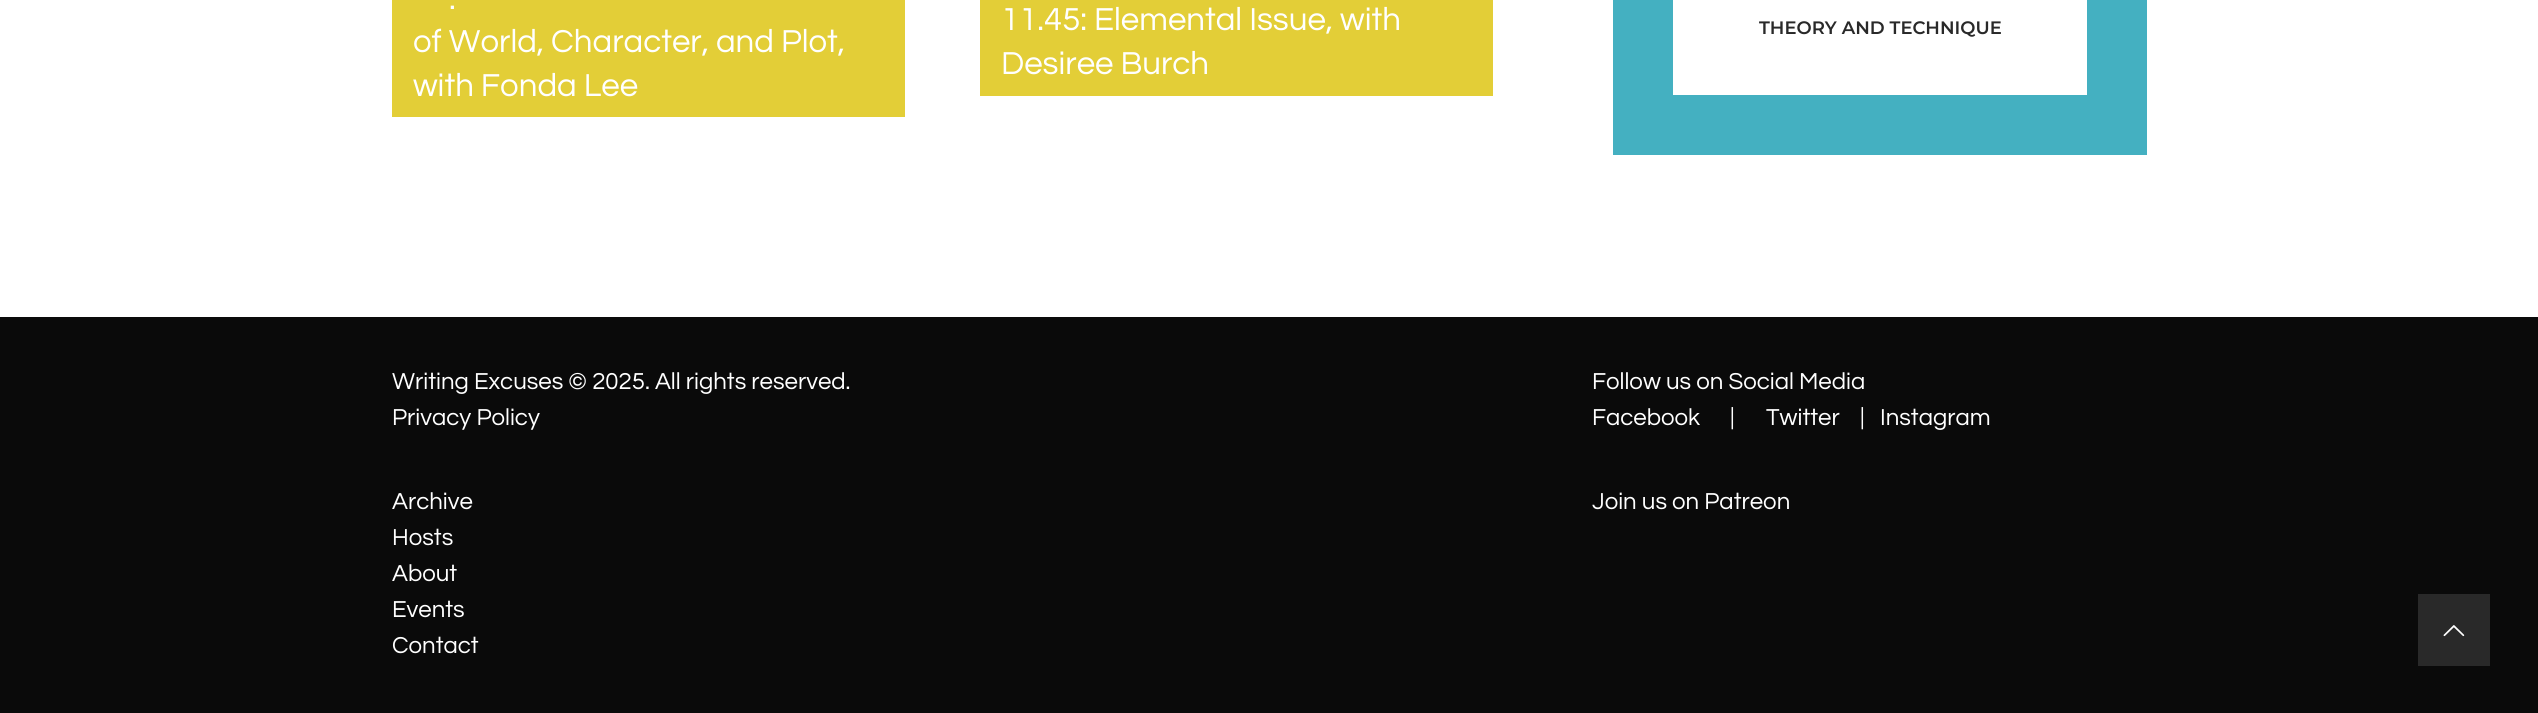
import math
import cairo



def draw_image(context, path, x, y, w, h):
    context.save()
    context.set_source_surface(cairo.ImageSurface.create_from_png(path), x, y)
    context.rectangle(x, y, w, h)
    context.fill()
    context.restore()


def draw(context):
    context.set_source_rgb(1, 1, 1)
    context.paint()
    context.set_source_rgb(227 / 255, 206 / 255, 55 / 255)
    context.rectangle(392, 0, 513, 117)
    context.fill()
    context.rectangle(980, 0, 513, 96)
    context.fill()
    context.set_source_rgb(68 / 255, 176 / 255, 193 / 255)
    context.rectangle(1613, 0, 534, 155)
    context.fill()
    context.set_source_rgb(1, 1, 1)
    context.rectangle(1673, 0, 414, 95)
    context.fill()
    context.set_source_rgb(10 / 255, 10 / 255, 10 / 255)
    context.rectangle(0, 317, 2538, 396)
    context.fill()
    context.set_source_rgb(41 / 255, 41 / 255, 41 / 255)
    context.rectangle(2418, 594, 72, 72)
    context.fill()
    draw_image(context, "images/1.png", 2443, 625, 22, 12)
    context.select_font_face("Questrial")
    context.set_font_size(33)
    context.set_source_rgb(1, 1, 1)
    context.move_to(449, 9)
    context.show_text(".")
    context.move_to(413, 52)
    context.show_text("of World, Character, and Plot,")
    context.move_to(413, 96)
    context.show_text("with Fonda Lee")
    context.move_to(1001, 30)
    context.show_text("11.45: Elemental Issue, with")
    context.move_to(1001, 74)
    context.show_text("Desiree Burch")
    context.select_font_face("Montserrat SemiBold")
    context.set_font_size(18)
    context.set_source_rgb(41 / 255, 41 / 255, 41 / 255)
    context.move_to(1759, 34)
    context.show_text("THEORY AND TECHNIQUE")
    context.select_font_face("Questrial")
    context.set_font_size(24)
    context.set_source_rgb(1, 1, 1)
    context.move_to(392, 389)
    context.show_text("Writing Excuses © 2025. All rights reserved.")
    context.move_to(392, 425)
    context.show_text("Privacy Policy")
    context.move_to(392, 509)
    context.show_text("Archive")
    context.move_to(392, 545)
    context.show_text("Hosts")
    context.move_to(392, 581)
    context.show_text("About")
    context.move_to(392, 617)
    context.show_text("Events")
    context.move_to(392, 653)
    context.show_text("Contact")
    context.move_to(1592, 389)
    context.show_text("Follow us on Social Media")
    context.move_to(1592, 425)
    context.show_text("Facebook")
    context.move_to(1730, 425)
    context.show_text("|")
    context.move_to(1766, 425)
    context.show_text("Twitter")
    context.move_to(1860, 425)
    context.show_text("|")
    context.move_to(1880, 425)
    context.show_text("Instagram")
    context.move_to(1592, 509)
    context.show_text("Join us on Patreon")


surface = cairo.ImageSurface(cairo.Format.RGB24, 2538, 713)
context = cairo.Context(surface)
options = cairo.FontOptions()
options.set_hint_metrics(cairo.HintMetrics.OFF)
options.set_hint_style(cairo.HintStyle.NONE)
context.set_font_options(options)
context.set_miter_limit(4)
draw(context)
surface.write_to_png("out.png")
